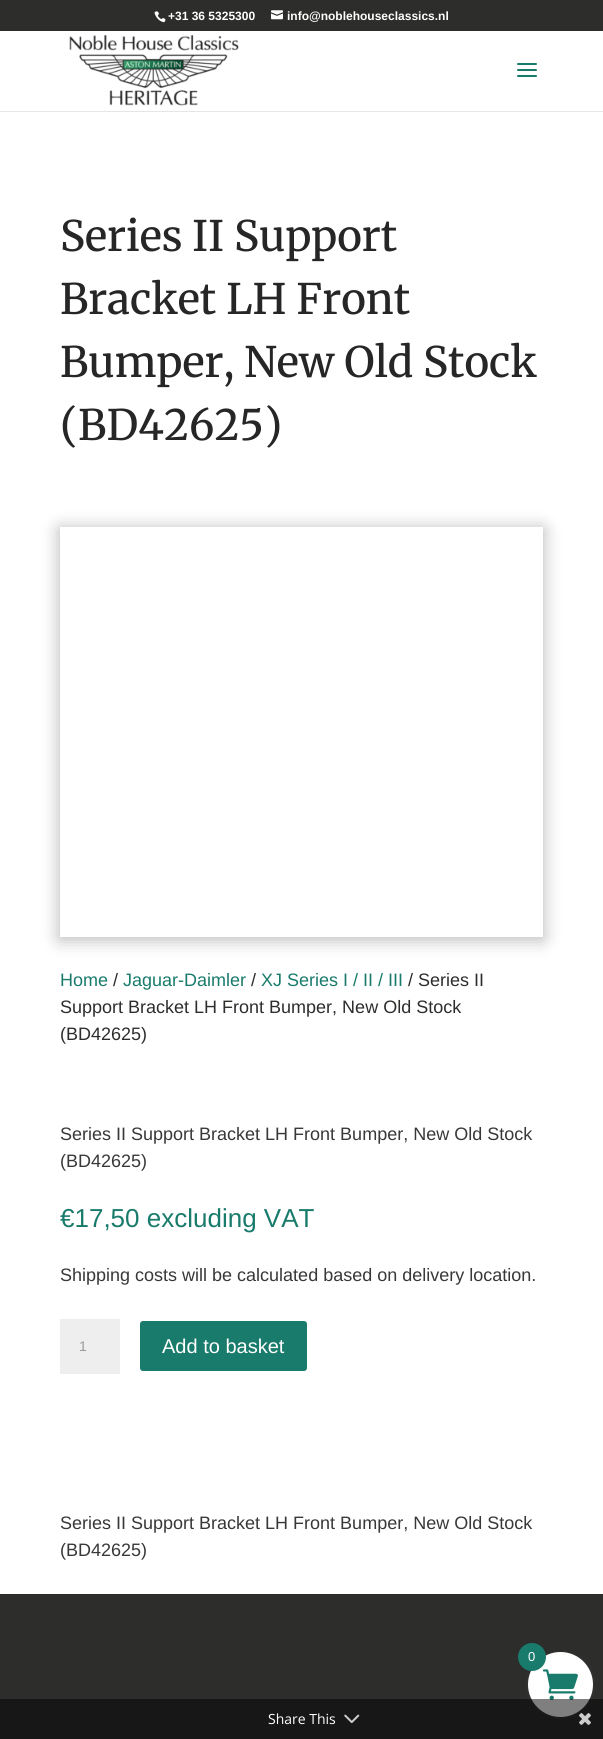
import math
import cairo



def rounded_rect(context, x, y, w, h, r):
    context.new_sub_path()
    for i, (u, v) in enumerate([(x + w - r, y + h - r), (x + r, y + h - r), (x + r, y + r), (x + w - r, y + r)]):
        context.arc(u, v, r, i * math.pi / 2, (i + 1) * math.pi / 2)
    context.close_path()


def draw_shadow(context, x, y, w, h, r, blur, alpha):
    context.push_group_with_content(cairo.Content.ALPHA)
    context.set_operator(cairo.Operator.SOURCE)
    for i in range(15, -16, -2):
        e = blur * i / 6
        if min(w, h) + 2 * e > 0:
            context.set_source_rgba(0, 0, 0, alpha * math.erfc((i - 1) / 8.5) / 2)
            rounded_rect(context, x - e, y - e, w + 2 * e, h + 2 * e, max(0, min(r + e + blur * .6, min(w, h) / 2 + e)))
            context.fill()
    context.mask(context.pop_group())


def draw_image(context, path, x, y, w, h):
    context.save()
    context.set_source_surface(cairo.ImageSurface.create_from_png(path), x, y)
    context.rectangle(x, y, w, h)
    context.fill()
    context.restore()


def draw(context):
    context.set_source_rgb(1, 1, 1)
    context.paint()
    context.set_source_rgb(45 / 255, 46 / 255, 44 / 255)
    context.rectangle(0, 0, 603, 31)
    context.fill()
    draw_image(context, "images/1.png", 154, 11, 12, 12)
    draw_image(context, "images/2.png", 271, 10, 12, 10)
    context.set_source_rgb(230 / 255, 230 / 255, 230 / 255)
    context.rectangle(0, 111, 603, 1)
    context.fill()
    draw_image(context, "images/3.png", 69, 35, 170, 71)
    draw_image(context, "images/4.png", 517, 63, 20, 14)
    context.save()
    context.set_fill_rule(cairo.FillRule.EVEN_ODD)
    context.new_path()
    context.move_to(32, 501)
    context.line_to(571, 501)
    context.line_to(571, 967)
    context.line_to(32, 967)
    context.close_path()
    context.move_to(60, 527)
    context.line_to(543, 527)
    context.line_to(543, 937)
    context.line_to(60, 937)
    context.close_path()
    context.clip()
    context.set_source_rgb(0, 0, 0)
    draw_shadow(context, 60, 529, 483, 410, 0, 9, 0.3)
    context.restore()
    context.set_source_rgb(238 / 255, 238 / 255, 238 / 255)
    context.rectangle(60, 1319, 60, 55)
    context.fill()
    context.set_source_rgb(25 / 255, 123 / 255, 107 / 255)
    rounded_rect(context, 141, 1322, 165, 48, 2)
    context.fill_preserve()
    context.stroke()
    context.set_source_rgb(45 / 255, 46 / 255, 44 / 255)
    context.rectangle(0, 1594, 603, 145)
    context.fill()
    context.set_source_rgb(56 / 255, 56 / 255, 56 / 255)
    draw_shadow(context, 528, 1653, 65, 65, 32.5, 2, 1)
    context.set_source_rgb(1, 1, 1)
    context.arc(560.5, 1684.5, 32.5, 0, 2 * math.pi)
    context.fill()
    draw_image(context, "images/5.png", 542, 1669, 36, 31)
    context.set_source_rgb(25 / 255, 123 / 255, 107 / 255)
    context.arc(532, 1657, 14, 0, 2 * math.pi)
    context.fill()
    context.set_source_rgba(0, 0, 0, 0.5)
    context.rectangle(0, 1699, 603, 40)
    context.fill()
    draw_image(context, "images/6.png", 344, 1714, 16, 10)
    draw_image(context, "images/7.png", 579, 1713, 12, 12)
    context.select_font_face("Liberation Sans", cairo.FontSlant.NORMAL, cairo.FontWeight.BOLD)
    context.set_font_size(12)
    context.set_source_rgb(1, 1, 1)
    context.move_to(168, 20)
    context.show_text("+31 36 5325300")
    context.move_to(287, 20)
    context.show_text("info@noblehouseclassics.nl")
    context.select_font_face("Merriweather Medium")
    context.set_font_size(42)
    context.set_source_rgb(38 / 255, 38 / 255, 38 / 255)
    context.move_to(60, 251)
    context.show_text("Series II Support")
    context.move_to(60, 314)
    context.show_text("Bracket LH Front")
    context.move_to(60, 377)
    context.show_text("Bumper, New Old Stock")
    context.move_to(60, 440)
    context.show_text("(BD42625)")
    context.select_font_face("Liberation Sans")
    context.set_font_size(18)
    context.set_source_rgb(25 / 255, 123 / 255, 107 / 255)
    context.move_to(60, 986)
    context.show_text("Home")
    context.set_source_rgb(45 / 255, 46 / 255, 44 / 255)
    context.move_to(113, 986)
    context.show_text("/")
    context.set_source_rgb(25 / 255, 123 / 255, 107 / 255)
    context.move_to(123, 986)
    context.show_text("Jaguar-Daimler")
    context.set_source_rgb(45 / 255, 46 / 255, 44 / 255)
    context.move_to(251, 986)
    context.show_text("/")
    context.set_source_rgb(25 / 255, 123 / 255, 107 / 255)
    context.move_to(261, 986)
    context.show_text("XJ Series I / II / III")
    context.set_source_rgb(45 / 255, 46 / 255, 44 / 255)
    context.move_to(408, 986)
    context.show_text("/ Series II")
    context.move_to(60, 1013)
    context.show_text("Support Bracket LH Front Bumper, New Old Stock")
    context.move_to(60, 1040)
    context.show_text("(BD42625)")
    context.set_source_rgb(56 / 255, 56 / 255, 56 / 255)
    context.move_to(60, 1140)
    context.show_text("Series II Support Bracket LH Front Bumper, New Old Stock")
    context.move_to(60, 1167)
    context.show_text("(BD42625)")
    context.set_font_size(26)
    context.set_source_rgb(25 / 255, 123 / 255, 107 / 255)
    context.move_to(60, 1227)
    context.show_text("€17,50 excluding VAT")
    context.set_font_size(18)
    context.set_source_rgb(56 / 255, 56 / 255, 56 / 255)
    context.move_to(60, 1281)
    context.show_text("Shipping costs will be calculated based on delivery location.")
    context.set_font_size(14)
    context.set_source_rgb(153 / 255, 153 / 255, 153 / 255)
    context.move_to(79, 1351)
    context.show_text("1")
    context.set_font_size(20)
    context.set_source_rgb(1, 1, 1)
    context.move_to(162, 1353)
    context.show_text("Add to basket")
    context.set_font_size(18)
    context.set_source_rgb(56 / 255, 56 / 255, 56 / 255)
    context.move_to(60, 1529)
    context.show_text("Series II Support Bracket LH Front Bumper, New Old Stock")
    context.move_to(60, 1556)
    context.show_text("(BD42625)")
    context.set_font_size(13)
    context.set_source_rgb(1, 1, 1)
    context.move_to(528, 1661)
    context.show_text("0")
    context.select_font_face("Open Sans")
    context.set_font_size(14)
    context.move_to(268, 1724)
    context.show_text("Share This")


surface = cairo.ImageSurface(cairo.Format.RGB24, 603, 1739)
context = cairo.Context(surface)
options = cairo.FontOptions()
options.set_hint_metrics(cairo.HintMetrics.OFF)
options.set_hint_style(cairo.HintStyle.NONE)
context.set_font_options(options)
context.set_miter_limit(4)
draw(context)
surface.write_to_png("out.png")
